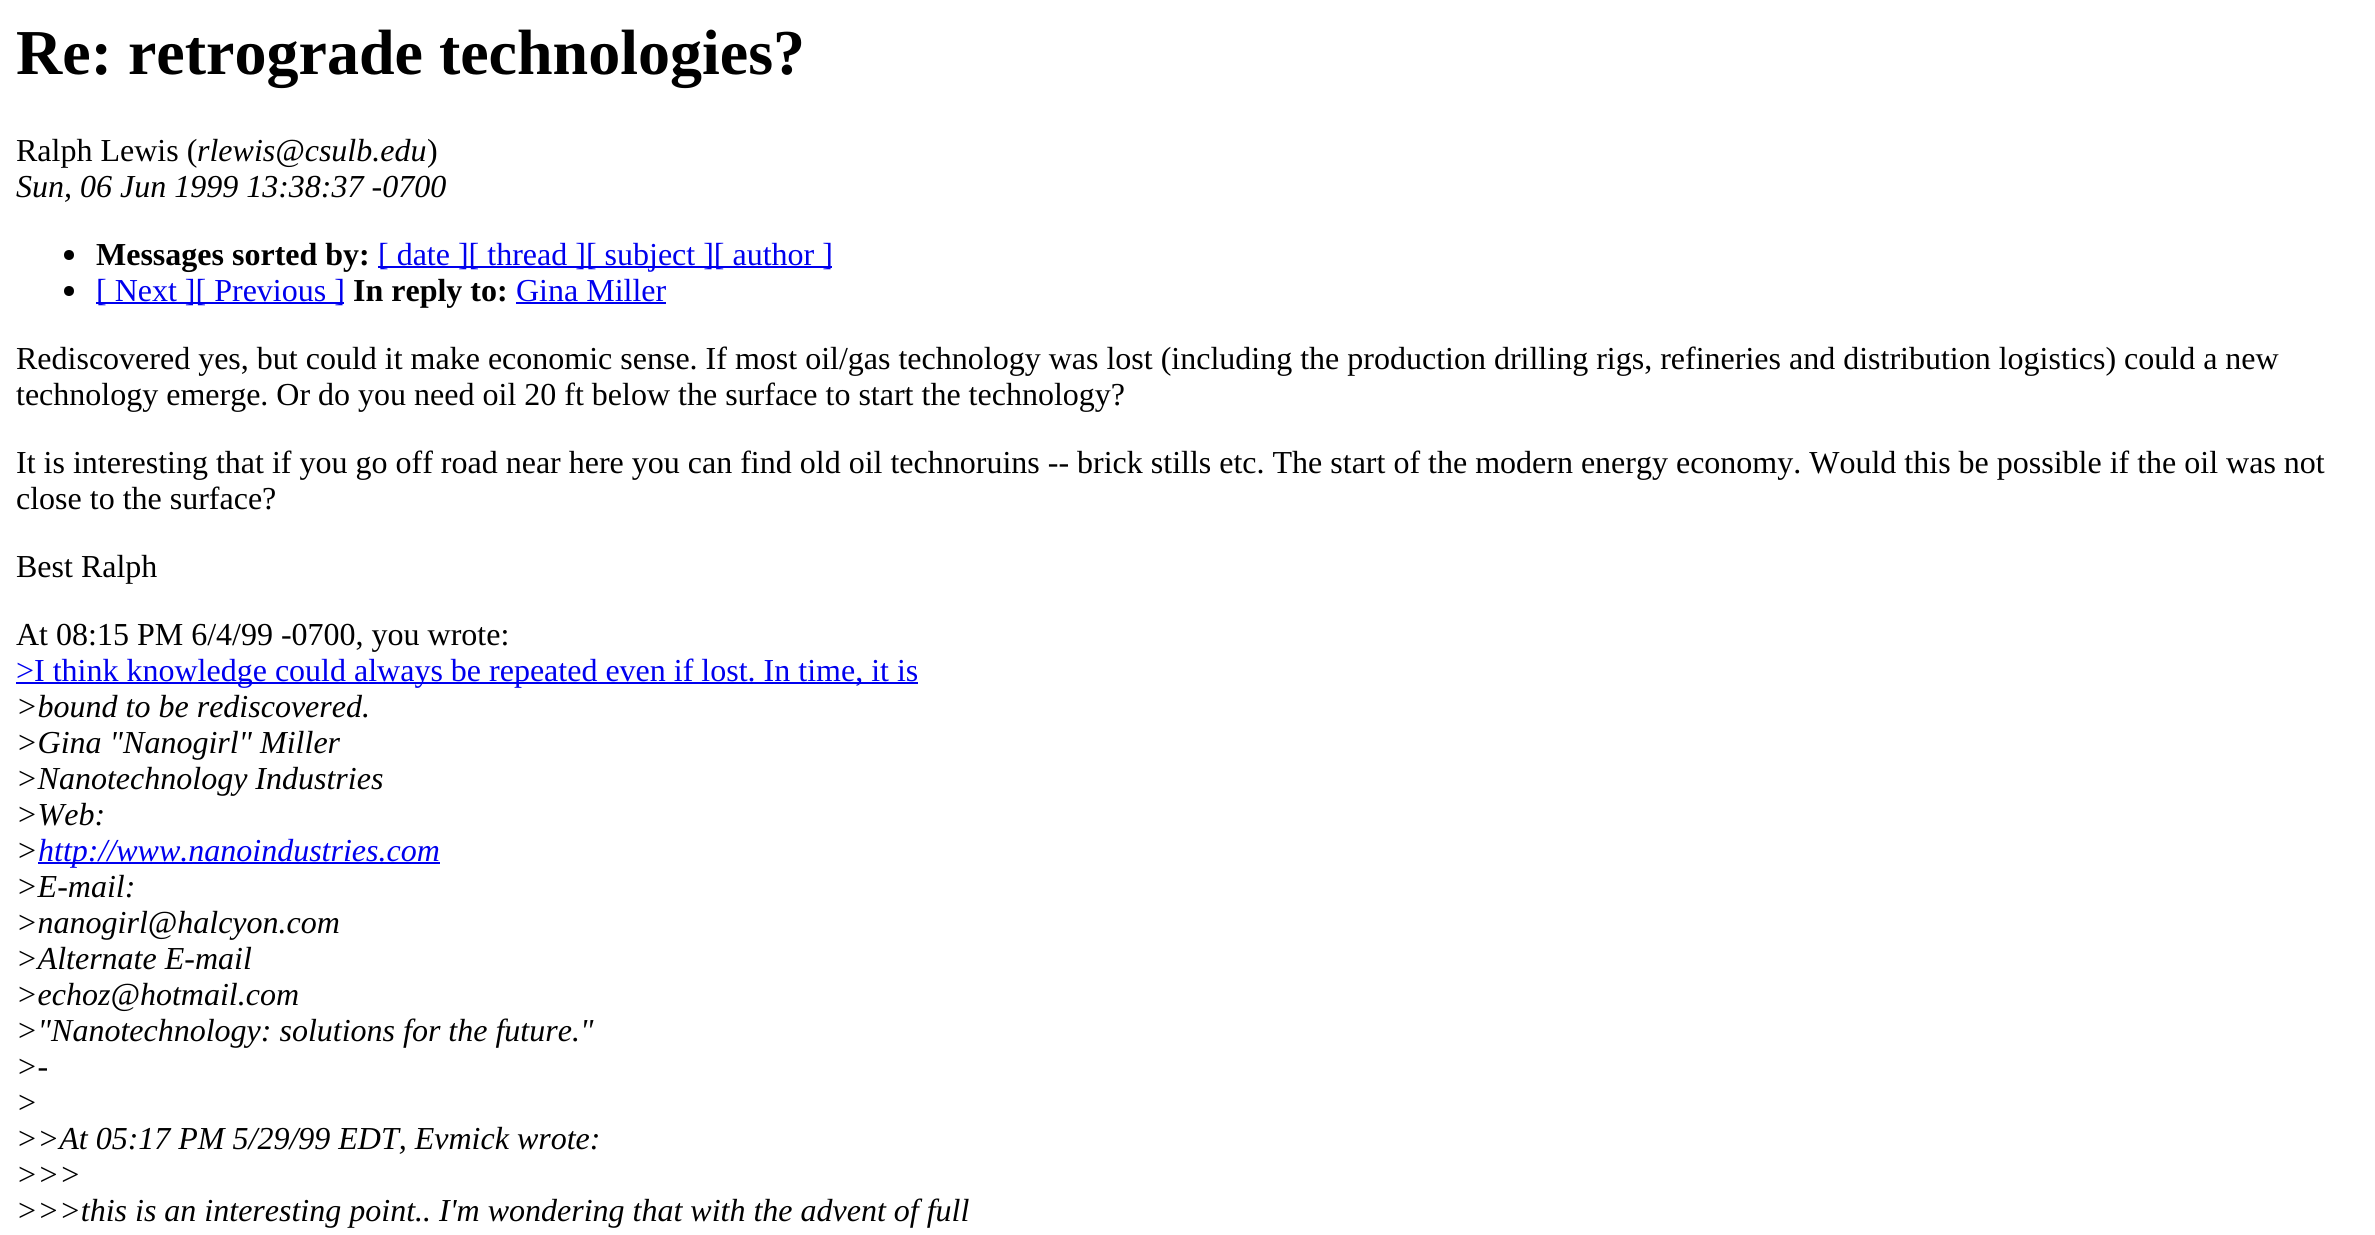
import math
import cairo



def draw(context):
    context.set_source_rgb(1, 1, 1)
    context.paint()
    context.set_source_rgb(0, 0, 0)
    context.arc(69, 255, 5, 0, 2 * math.pi)
    context.fill()
    context.set_source_rgb(0, 0, 238 / 255)
    context.rectangle(378, 266, 454, 2)
    context.fill()
    context.set_source_rgb(0, 0, 0)
    context.arc(69, 291, 5, 0, 2 * math.pi)
    context.fill()
    context.set_source_rgb(0, 0, 238 / 255)
    context.rectangle(96, 302, 248, 2)
    context.fill()
    context.rectangle(516, 302, 150, 2)
    context.fill()
    context.rectangle(16, 682, 902, 2)
    context.fill()
    context.rectangle(38, 862, 402, 2)
    context.fill()
    context.select_font_face("Liberation Serif", cairo.FontSlant.NORMAL, cairo.FontWeight.BOLD)
    context.set_font_size(64)
    context.set_source_rgb(0, 0, 0)
    context.move_to(16, 74)
    context.show_text("Re: retrograde technologies?")
    context.select_font_face("Liberation Serif")
    context.set_font_size(32)
    context.move_to(16, 161)
    context.show_text("Ralph Lewis (")
    context.select_font_face("Liberation Serif", cairo.FontSlant.ITALIC)
    context.move_to(197, 161)
    context.show_text("rlewis@csulb.edu")
    context.select_font_face("Liberation Serif")
    context.move_to(427, 161)
    context.show_text(")")
    context.select_font_face("Liberation Serif", cairo.FontSlant.ITALIC)
    context.move_to(16, 197)
    context.show_text("Sun, 06 Jun 1999 13:38:37 -0700")
    context.select_font_face("Liberation Serif", cairo.FontSlant.NORMAL, cairo.FontWeight.BOLD)
    context.move_to(96, 265)
    context.show_text("Messages sorted by:")
    context.select_font_face("Liberation Serif")
    context.set_source_rgb(0, 0, 238 / 255)
    context.move_to(378, 265)
    context.show_text("[ date ][ thread ][ subject ][ author ]")
    context.move_to(96, 301)
    context.show_text("[ Next ][ Previous ]")
    context.select_font_face("Liberation Serif", cairo.FontSlant.NORMAL, cairo.FontWeight.BOLD)
    context.set_source_rgb(0, 0, 0)
    context.move_to(353, 301)
    context.show_text("In reply to:")
    context.select_font_face("Liberation Serif")
    context.set_source_rgb(0, 0, 238 / 255)
    context.move_to(516, 301)
    context.show_text("Gina Miller")
    context.set_source_rgb(0, 0, 0)
    context.move_to(16, 369)
    context.show_text("Rediscovered yes, but could it make economic sense. If most oil/gas technology was lost (including the production drilling rigs, refineries and distribution logistics) could a new")
    context.move_to(16, 405)
    context.show_text("technology emerge. Or do you need oil 20 ft below the surface to start the technology?")
    context.move_to(16, 473)
    context.show_text("It is interesting that if you go off road near here you can find old oil technoruins -- brick stills etc. The start of the modern energy economy. Would this be possible if the oil was not")
    context.move_to(16, 509)
    context.show_text("close to the surface?")
    context.move_to(16, 577)
    context.show_text("Best Ralph")
    context.move_to(16, 645)
    context.show_text("At 08:15 PM 6/4/99 -0700, you wrote:")
    context.set_source_rgb(0, 0, 238 / 255)
    context.move_to(16, 681)
    context.show_text(">I think knowledge could always be repeated even if lost. In time, it is")
    context.select_font_face("Liberation Serif", cairo.FontSlant.ITALIC)
    context.set_source_rgb(0, 0, 0)
    context.move_to(16, 717)
    context.show_text(">bound to be rediscovered.")
    context.move_to(16, 753)
    context.show_text(">Gina \"Nanogirl\" Miller")
    context.move_to(16, 789)
    context.show_text(">Nanotechnology Industries")
    context.move_to(16, 825)
    context.show_text(">Web:")
    context.move_to(16, 861)
    context.show_text(">")
    context.set_source_rgb(0, 0, 238 / 255)
    context.move_to(38, 861)
    context.show_text("http://www.nanoindustries.com")
    context.set_source_rgb(0, 0, 0)
    context.move_to(16, 897)
    context.show_text(">E-mail:")
    context.move_to(16, 933)
    context.show_text(">nanogirl@halcyon.com")
    context.move_to(16, 969)
    context.show_text(">Alternate E-mail")
    context.move_to(16, 1005)
    context.show_text(">echoz@hotmail.com")
    context.move_to(16, 1041)
    context.show_text(">\"Nanotechnology: solutions for the future.\"")
    context.move_to(16, 1077)
    context.show_text(">-")
    context.move_to(16, 1113)
    context.show_text(">")
    context.move_to(16, 1149)
    context.show_text(">>At 05:17 PM 5/29/99 EDT, Evmick wrote:")
    context.move_to(16, 1185)
    context.show_text(">>>")
    context.move_to(16, 1221)
    context.show_text(">>>this is an interesting point.. I'm wondering that with the advent of full")


surface = cairo.ImageSurface(cairo.Format.RGB24, 2375, 1235)
context = cairo.Context(surface)
options = cairo.FontOptions()
options.set_hint_metrics(cairo.HintMetrics.OFF)
options.set_hint_style(cairo.HintStyle.NONE)
context.set_font_options(options)
context.set_miter_limit(4)
draw(context)
surface.write_to_png("out.png")
